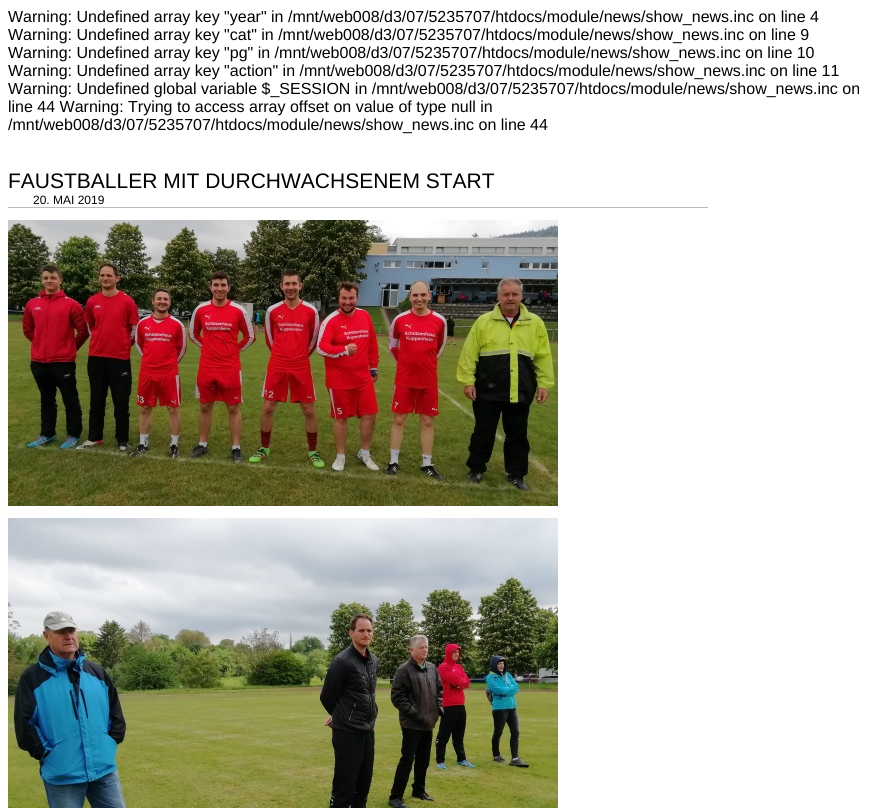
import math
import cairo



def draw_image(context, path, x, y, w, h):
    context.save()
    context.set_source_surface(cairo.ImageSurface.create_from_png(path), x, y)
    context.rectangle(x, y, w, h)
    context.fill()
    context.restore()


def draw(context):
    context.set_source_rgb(1, 1, 1)
    context.paint()
    context.set_source_rgb(187 / 255, 187 / 255, 187 / 255)
    context.rectangle(8, 207, 700, 1)
    context.fill()
    draw_image(context, "images/1.png", 8, 220, 550, 286)
    draw_image(context, "images/2.png", 8, 518, 550, 290)
    context.select_font_face("Liberation Sans")
    context.set_font_size(16)
    context.set_source_rgb(0, 0, 0)
    context.move_to(8, 22)
    context.show_text("Warning: Undefined array key \"year\" in /mnt/web008/d3/07/5235707/htdocs/module/news/show_news.inc on line 4")
    context.move_to(8, 40)
    context.show_text("Warning: Undefined array key \"cat\" in /mnt/web008/d3/07/5235707/htdocs/module/news/show_news.inc on line 9")
    context.move_to(8, 58)
    context.show_text("Warning: Undefined array key \"pg\" in /mnt/web008/d3/07/5235707/htdocs/module/news/show_news.inc on line 10")
    context.move_to(8, 76)
    context.show_text("Warning: Undefined array key \"action\" in /mnt/web008/d3/07/5235707/htdocs/module/news/show_news.inc on line 11")
    context.move_to(8, 94)
    context.show_text("Warning: Undefined global variable $_SESSION in /mnt/web008/d3/07/5235707/htdocs/module/news/show_news.inc on")
    context.move_to(8, 112)
    context.show_text("line 44 Warning: Trying to access array offset on value of type null in")
    context.move_to(8, 130)
    context.show_text("/mnt/web008/d3/07/5235707/htdocs/module/news/show_news.inc on line 44")
    context.set_font_size(21)
    context.move_to(8, 188)
    context.show_text("FAUSTBALLER MIT DURCHWACHSENEM START")
    context.set_font_size(12)
    context.move_to(33, 204)
    context.show_text("20. MAI 2019")


surface = cairo.ImageSurface(cairo.Format.RGB24, 883, 808)
context = cairo.Context(surface)
options = cairo.FontOptions()
options.set_hint_metrics(cairo.HintMetrics.OFF)
options.set_hint_style(cairo.HintStyle.NONE)
context.set_font_options(options)
context.set_miter_limit(4)
draw(context)
surface.write_to_png("out.png")
